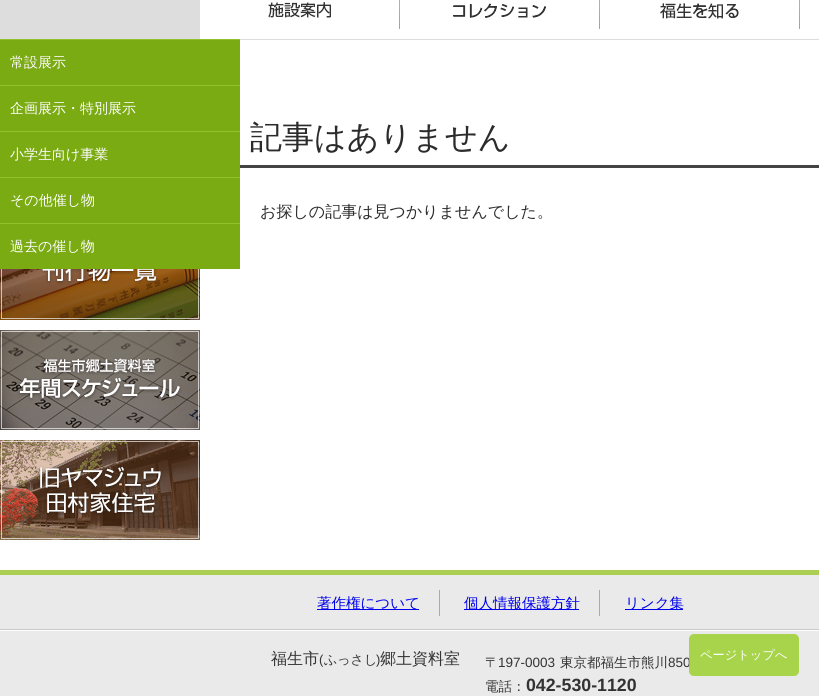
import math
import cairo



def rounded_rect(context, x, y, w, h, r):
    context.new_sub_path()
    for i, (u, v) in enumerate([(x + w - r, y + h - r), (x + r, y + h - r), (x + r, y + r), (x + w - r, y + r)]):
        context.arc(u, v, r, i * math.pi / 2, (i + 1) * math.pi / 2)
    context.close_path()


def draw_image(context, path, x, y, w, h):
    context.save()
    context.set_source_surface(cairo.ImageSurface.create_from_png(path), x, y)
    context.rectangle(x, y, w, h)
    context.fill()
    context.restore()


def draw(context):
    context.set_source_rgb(1, 1, 1)
    context.paint()
    context.set_source_rgb(220 / 255, 220 / 255, 220 / 255)
    context.rectangle(240, 39, 579, 1)
    context.fill()
    draw_image(context, "images/1.png", 268, 0, 132, 29)
    draw_image(context, "images/2.png", 453, 0, 147, 29)
    draw_image(context, "images/3.png", 660, 0, 140, 29)
    context.set_source_rgb(221 / 255, 221 / 255, 221 / 255)
    context.rectangle(0, 0, 200, 39)
    context.fill()
    context.set_source_rgb(146 / 255, 193 / 255, 44 / 255)
    context.rectangle(0, 39, 240, 1)
    context.fill()
    context.set_source_rgb(123 / 255, 171 / 255, 19 / 255)
    context.rectangle(0, 40, 240, 45)
    context.fill()
    context.set_source_rgb(146 / 255, 193 / 255, 44 / 255)
    context.rectangle(0, 85, 240, 1)
    context.fill()
    context.set_source_rgb(123 / 255, 171 / 255, 19 / 255)
    context.rectangle(0, 86, 240, 45)
    context.fill()
    context.set_source_rgb(146 / 255, 193 / 255, 44 / 255)
    context.rectangle(0, 131, 240, 1)
    context.fill()
    context.set_source_rgb(123 / 255, 171 / 255, 19 / 255)
    context.rectangle(0, 132, 240, 45)
    context.fill()
    context.set_source_rgb(146 / 255, 193 / 255, 44 / 255)
    context.rectangle(0, 177, 240, 1)
    context.fill()
    context.set_source_rgb(123 / 255, 171 / 255, 19 / 255)
    context.rectangle(0, 178, 240, 45)
    context.fill()
    context.set_source_rgb(146 / 255, 193 / 255, 44 / 255)
    context.rectangle(0, 223, 240, 1)
    context.fill()
    context.set_source_rgb(123 / 255, 171 / 255, 19 / 255)
    context.rectangle(0, 224, 240, 45)
    context.fill()
    context.set_source_rgb(68 / 255, 68 / 255, 68 / 255)
    context.rectangle(240, 165, 579, 3)
    context.fill()
    draw_image(context, "images/4.png", 0, 269, 200, 51)
    draw_image(context, "images/5.png", 0, 330, 200, 100)
    draw_image(context, "images/6.png", 0, 440, 200, 100)
    context.set_source_rgb(234 / 255, 234 / 255, 234 / 255)
    context.rectangle(0, 575, 819, 121)
    context.fill()
    context.set_source_rgb(170 / 255, 207 / 255, 83 / 255)
    context.rectangle(0, 570, 819, 5)
    context.fill()
    context.set_source_rgb(201 / 255, 201 / 255, 201 / 255)
    context.rectangle(0, 629, 819, 1)
    context.fill()
    context.set_source_rgb(170 / 255, 170 / 255, 170 / 255)
    context.rectangle(439, 590, 1, 26)
    context.fill()
    context.set_source_rgb(0, 0, 238 / 255)
    context.rectangle(317, 609, 102, 1)
    context.fill()
    context.set_source_rgb(170 / 255, 170 / 255, 170 / 255)
    context.rectangle(599, 590, 1, 26)
    context.fill()
    context.set_source_rgb(0, 0, 238 / 255)
    context.rectangle(464, 609, 115, 1)
    context.fill()
    context.rectangle(625, 609, 58, 1)
    context.fill()
    context.set_source_rgb(1, 1, 1)
    context.rectangle(0, 630, 819, 1)
    context.fill()
    context.select_font_face("WenQuanYi Zen Hei Medium")
    context.set_font_size(14)
    context.set_source_rgb(252 / 255, 252 / 255, 252 / 255)
    context.move_to(10, 67)
    context.show_text("常設展示")
    context.move_to(10, 113)
    context.show_text("企画展示・特別展示")
    context.move_to(10, 159)
    context.show_text("小学生向け事業")
    context.move_to(10, 205)
    context.show_text("その他催し物")
    context.move_to(10, 251)
    context.show_text("過去の催し物")
    context.set_font_size(32)
    context.set_source_rgb(43 / 255, 43 / 255, 43 / 255)
    context.move_to(250, 148)
    context.show_text("記事はありません")
    context.set_font_size(16)
    context.move_to(260, 217)
    context.show_text("お探しの記事は見つかりませんでした。")
    context.set_font_size(14.5)
    context.set_source_rgb(0, 0, 238 / 255)
    context.move_to(317, 608)
    context.show_text("著作権について")
    context.move_to(464, 608)
    context.show_text("個人情報保護方針")
    context.move_to(625, 608)
    context.show_text("リンク集")
    context.set_font_size(16)
    context.set_source_rgb(51 / 255, 51 / 255, 51 / 255)
    context.move_to(271, 664)
    context.show_text("福生市")
    context.select_font_face("Liberation Sans")
    context.set_font_size(13)
    context.move_to(319, 664)
    context.show_text("(")
    context.select_font_face("WenQuanYi Zen Hei Medium")
    context.move_to(324, 664)
    context.show_text("ふっさし")
    context.select_font_face("Liberation Sans")
    context.move_to(376, 664)
    context.show_text(")")
    context.select_font_face("WenQuanYi Zen Hei Medium")
    context.set_font_size(16)
    context.move_to(380, 664)
    context.show_text("郷土資料室")
    context.set_font_size(13.5)
    context.move_to(485, 667)
    context.show_text("〒")
    context.select_font_face("Liberation Sans")
    context.move_to(498, 667)
    context.show_text("197-0003")
    context.select_font_face("WenQuanYi Zen Hei Medium")
    context.move_to(560, 667)
    context.show_text("東京都福生市熊川")
    context.select_font_face("Liberation Sans")
    context.move_to(668, 667)
    context.show_text("850")
    context.select_font_face("WenQuanYi Zen Hei Medium")
    context.move_to(485, 691)
    context.show_text("電話：")
    context.select_font_face("Liberation Sans", cairo.FontSlant.NORMAL, cairo.FontWeight.BOLD)
    context.set_font_size(17.75)
    context.move_to(526, 691)
    context.show_text("042-530-1120")
    context.set_source_rgba(157 / 255, 208 / 255, 48 / 255, 0.85)
    rounded_rect(context, 689, 634, 110, 42, 5)
    context.fill()
    context.select_font_face("WenQuanYi Zen Hei Medium")
    context.set_font_size(12.25)
    context.set_source_rgb(252 / 255, 252 / 255, 252 / 255)
    context.move_to(700, 659)
    context.show_text("ページトップへ")


surface = cairo.ImageSurface(cairo.Format.RGB24, 819, 696)
context = cairo.Context(surface)
options = cairo.FontOptions()
options.set_hint_metrics(cairo.HintMetrics.OFF)
options.set_hint_style(cairo.HintStyle.NONE)
context.set_font_options(options)
context.set_miter_limit(4)
draw(context)
surface.write_to_png("out.png")
